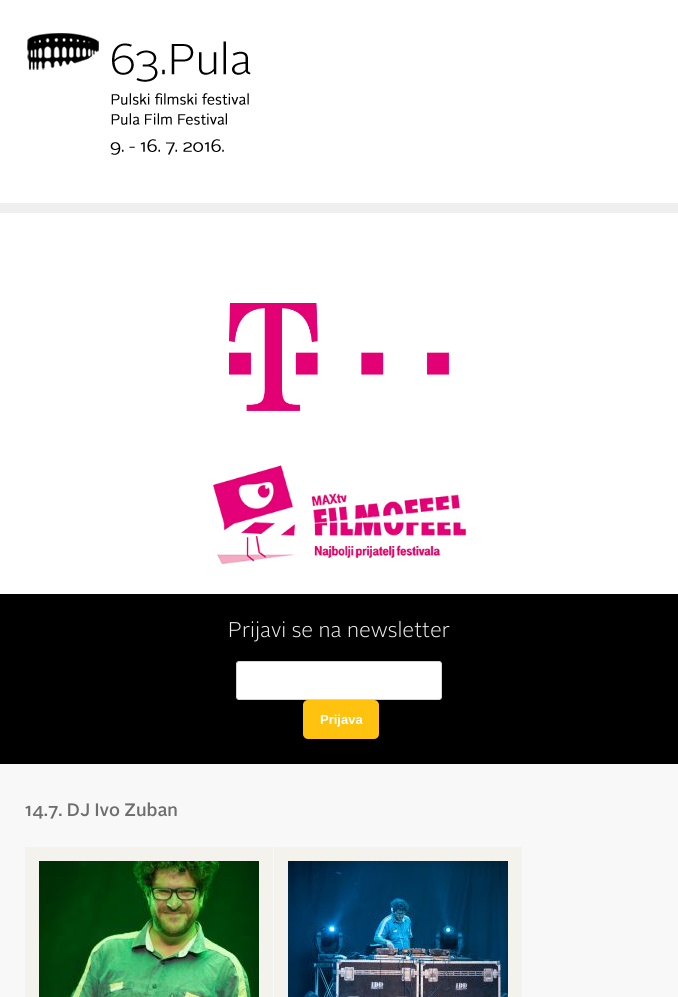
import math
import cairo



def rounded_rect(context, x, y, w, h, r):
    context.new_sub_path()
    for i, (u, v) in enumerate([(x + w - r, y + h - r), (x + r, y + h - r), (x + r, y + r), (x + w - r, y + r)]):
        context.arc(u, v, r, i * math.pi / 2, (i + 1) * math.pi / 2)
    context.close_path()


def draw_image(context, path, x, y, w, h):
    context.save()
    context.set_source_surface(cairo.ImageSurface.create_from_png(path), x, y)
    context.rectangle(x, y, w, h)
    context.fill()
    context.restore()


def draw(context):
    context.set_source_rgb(1, 1, 1)
    context.paint()
    draw_image(context, "images/1.png", 27, 33, 224, 122)
    context.set_source_rgb(239 / 255, 239 / 255, 239 / 255)
    context.rectangle(0, 203, 678, 10)
    context.fill()
    draw_image(context, "images/2.png", 229, 303, 220, 108)
    draw_image(context, "images/3.png", 213, 465, 253, 99)
    context.set_source_rgb(0, 0, 0)
    context.rectangle(0, 594, 678, 170)
    context.fill()
    context.set_source_rgb(1, 1, 1)
    rounded_rect(context, 236.5, 661.5, 205, 38, 2.5)
    context.fill_preserve()
    context.set_source_rgb(213 / 255, 213 / 255, 213 / 255)
    context.set_line_width(1)
    context.stroke()
    context.set_source_rgb(1, 194 / 255, 14 / 255)
    rounded_rect(context, 303, 700, 76, 39, 5)
    context.fill()
    context.set_source_rgb(248 / 255, 248 / 255, 248 / 255)
    context.rectangle(0, 764, 678, 233)
    context.fill()
    context.set_source_rgb(244 / 255, 242 / 255, 237 / 255)
    context.rectangle(25, 847, 248, 150)
    context.fill()
    draw_image(context, "images/4.png", 39, 861, 220, 136)
    context.rectangle(274, 847, 248, 150)
    context.fill()
    draw_image(context, "images/5.png", 288, 861, 220, 136)
    context.select_font_face("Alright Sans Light")
    context.set_font_size(21.25)
    context.set_source_rgb(238 / 255, 238 / 255, 238 / 255)
    context.move_to(228, 637)
    context.show_text("Prijavi se na newsletter")
    context.select_font_face("Liberation Sans", cairo.FontSlant.NORMAL, cairo.FontWeight.BOLD)
    context.set_font_size(13)
    context.set_source_rgb(1, 1, 1)
    context.move_to(320, 724)
    context.show_text("Prijava")
    context.select_font_face("Alright Sans Medium")
    context.set_font_size(18)
    context.set_source_rgb(110 / 255, 110 / 255, 110 / 255)
    context.move_to(25, 816)
    context.show_text("14.7. DJ Ivo Zuban")


surface = cairo.ImageSurface(cairo.Format.RGB24, 678, 997)
context = cairo.Context(surface)
options = cairo.FontOptions()
options.set_hint_metrics(cairo.HintMetrics.OFF)
options.set_hint_style(cairo.HintStyle.NONE)
context.set_font_options(options)
context.set_miter_limit(4)
draw(context)
surface.write_to_png("out.png")
